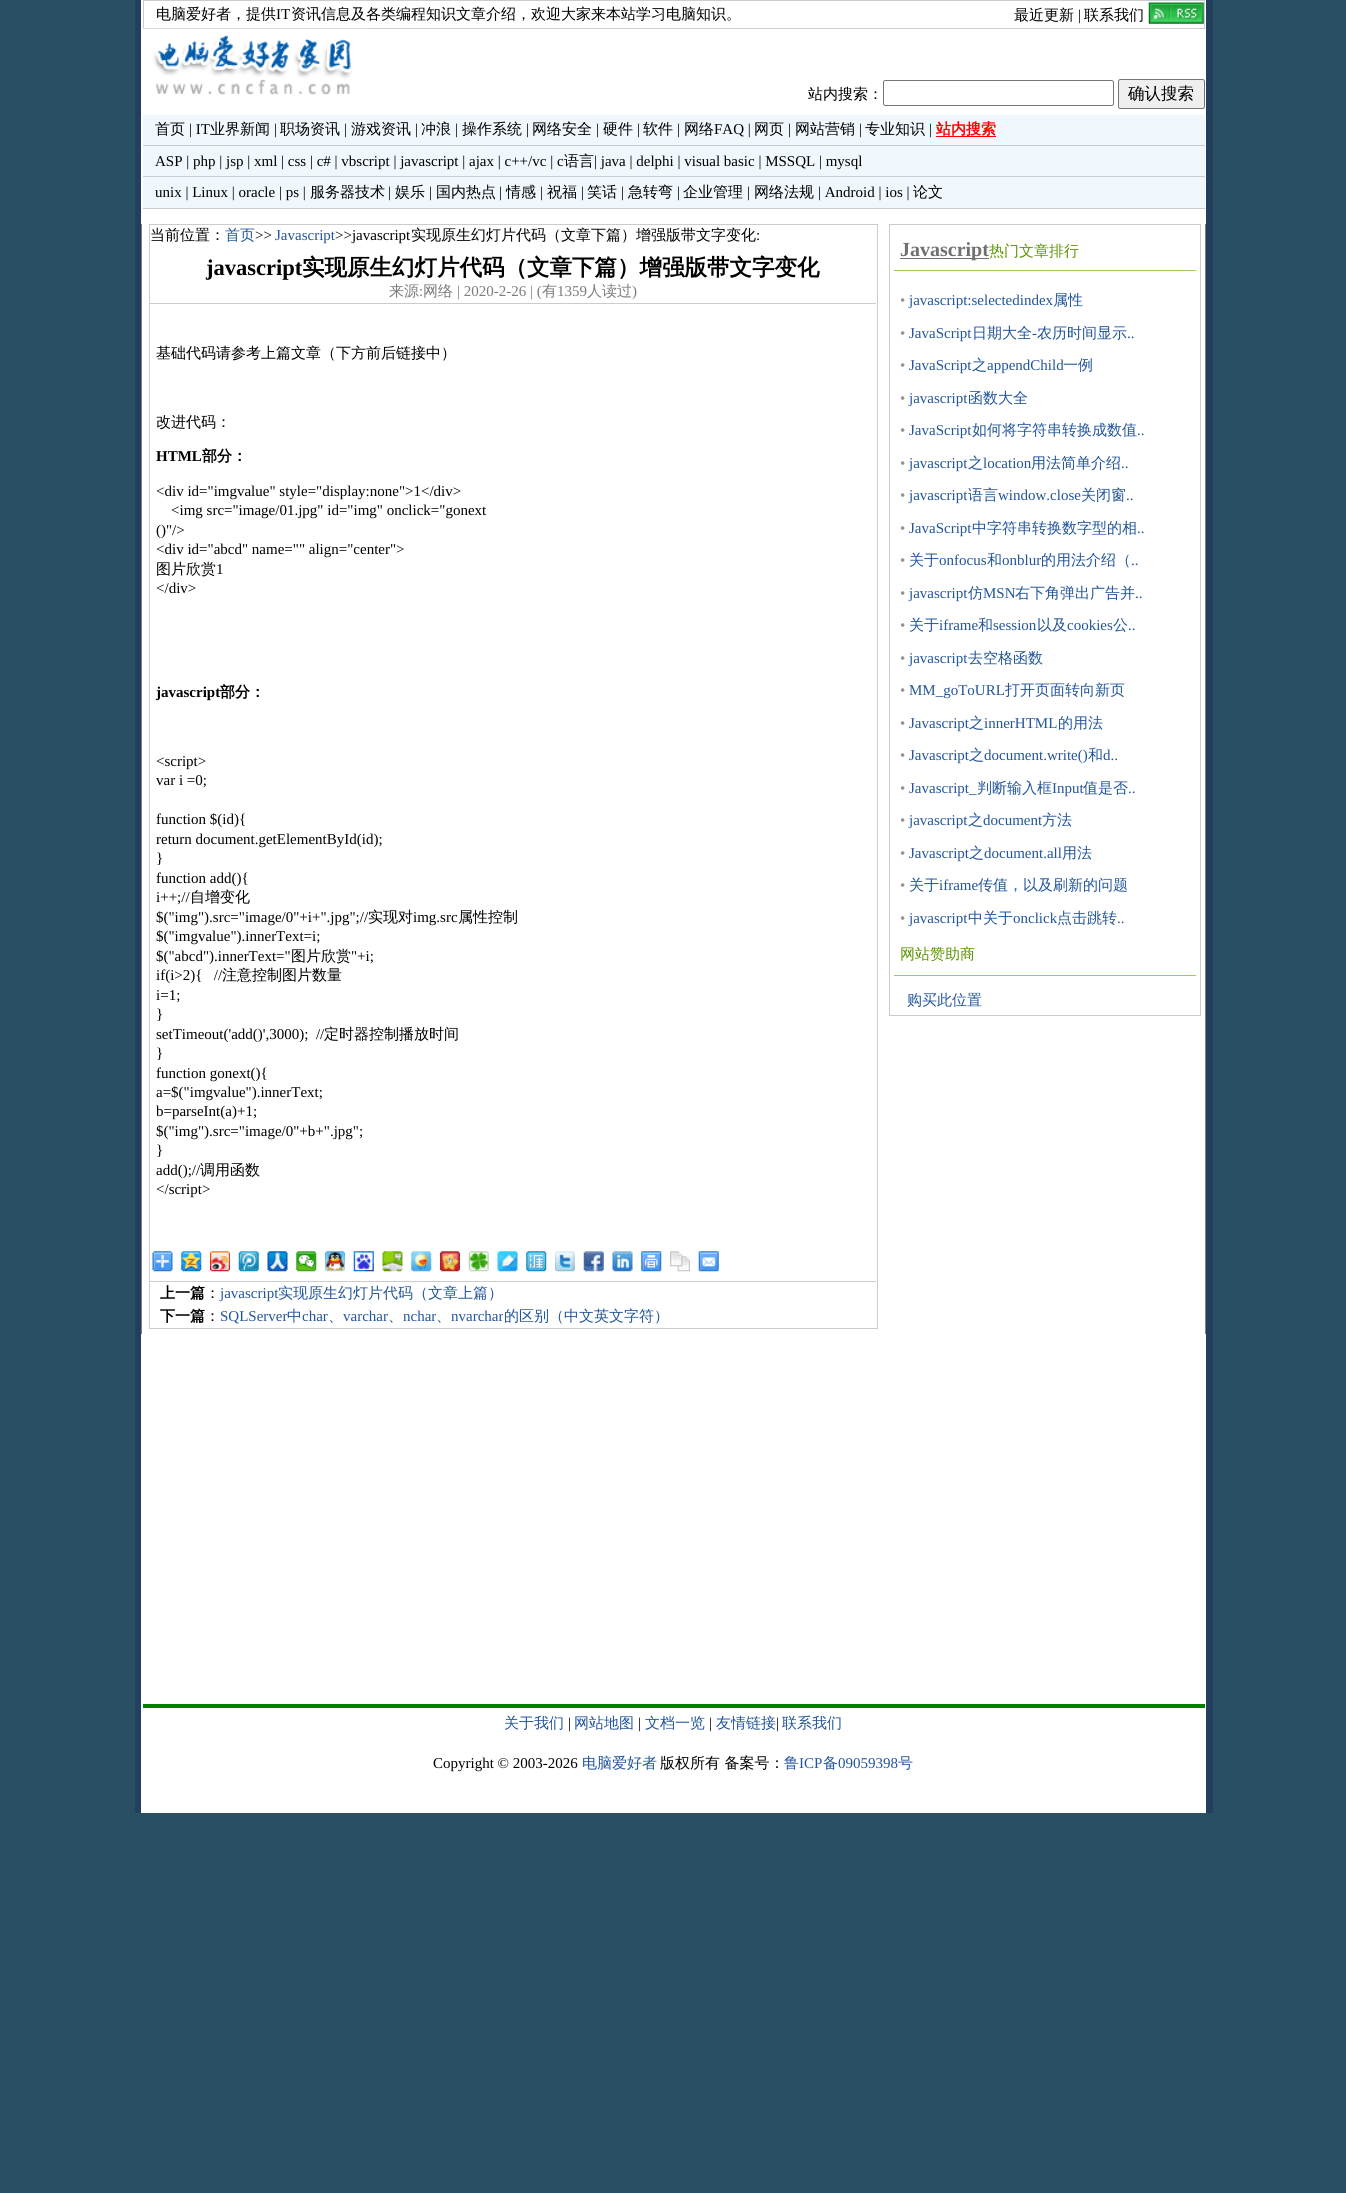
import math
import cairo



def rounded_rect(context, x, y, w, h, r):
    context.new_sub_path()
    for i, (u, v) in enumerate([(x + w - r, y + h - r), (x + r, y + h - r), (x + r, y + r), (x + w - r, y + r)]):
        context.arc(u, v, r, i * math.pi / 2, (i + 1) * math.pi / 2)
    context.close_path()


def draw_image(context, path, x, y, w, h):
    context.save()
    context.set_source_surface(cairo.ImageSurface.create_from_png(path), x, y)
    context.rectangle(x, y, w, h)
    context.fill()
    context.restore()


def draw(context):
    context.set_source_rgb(41 / 255, 79 / 255, 99 / 255)
    context.paint()
    context.set_source_rgb(1, 1, 1)
    context.rectangle(141, 0, 1065, 1813)
    context.fill()
    context.set_source_rgb(34 / 255, 64 / 255, 94 / 255)
    context.rectangle(1206, 0, 7, 1813)
    context.fill()
    context.rectangle(135, 0, 6, 1813)
    context.fill()
    context.rectangle(143.5, 0.5, 1061, 28)
    context.set_source_rgb(204 / 255, 204 / 255, 204 / 255)
    context.set_line_width(1)
    context.stroke()
    draw_image(context, "images/1.png", 1148, 2, 56, 22)
    draw_image(context, "images/2.png", 143, 28, 225, 67)
    rounded_rect(context, 883.5, 80.5, 230, 25, 2)
    context.set_source_rgb(118 / 255, 118 / 255, 118 / 255)
    context.stroke()
    context.set_source_rgb(239 / 255, 239 / 255, 239 / 255)
    rounded_rect(context, 1118.5, 79.5, 86, 29, 2)
    context.fill_preserve()
    context.set_source_rgb(118 / 255, 118 / 255, 118 / 255)
    context.stroke()
    context.set_source_rgb(240 / 255, 247 / 255, 253 / 255)
    context.rectangle(143, 115, 1062, 30)
    context.fill()
    context.set_source_rgb(204 / 255, 204 / 255, 204 / 255)
    context.rectangle(143, 145, 1062, 1)
    context.fill()
    context.set_source_rgb(1, 0, 0)
    context.rectangle(936, 136, 60, 1)
    context.fill()
    context.set_source_rgb(240 / 255, 247 / 255, 253 / 255)
    context.rectangle(143, 146, 1062, 62)
    context.fill()
    context.set_source_rgb(204 / 255, 204 / 255, 204 / 255)
    context.rectangle(143, 176, 1062, 1)
    context.fill()
    context.rectangle(143, 208, 1062, 1)
    context.fill()
    context.set_source_rgb(128 / 255, 128 / 255, 128 / 255)
    context.rectangle(1205, 224, 1, 1110)
    context.fill()
    context.rectangle(141, 224, 1, 1110)
    context.fill()
    context.rectangle(149.5, 224.5, 728, 1104)
    context.set_source_rgb(204 / 255, 204 / 255, 204 / 255)
    context.stroke()
    context.rectangle(150, 303, 726, 1)
    context.fill()
    draw_image(context, "images/3.png", 152, 1251, 21, 21)
    draw_image(context, "images/4.png", 181, 1251, 21, 21)
    draw_image(context, "images/5.png", 210, 1251, 20, 21)
    draw_image(context, "images/6.png", 238, 1251, 21, 21)
    draw_image(context, "images/7.png", 267, 1251, 21, 21)
    draw_image(context, "images/8.png", 296, 1251, 21, 21)
    draw_image(context, "images/9.png", 325, 1251, 20, 21)
    draw_image(context, "images/10.png", 353, 1251, 21, 21)
    draw_image(context, "images/11.png", 382, 1251, 21, 21)
    draw_image(context, "images/12.png", 411, 1251, 21, 21)
    draw_image(context, "images/13.png", 440, 1251, 20, 21)
    draw_image(context, "images/14.png", 468, 1251, 21, 21)
    draw_image(context, "images/15.png", 497, 1251, 21, 21)
    draw_image(context, "images/16.png", 526, 1251, 21, 21)
    draw_image(context, "images/17.png", 555, 1251, 20, 21)
    draw_image(context, "images/18.png", 583, 1251, 21, 21)
    draw_image(context, "images/19.png", 612, 1251, 21, 21)
    draw_image(context, "images/20.png", 641, 1251, 21, 21)
    draw_image(context, "images/21.png", 670, 1251, 20, 21)
    draw_image(context, "images/22.png", 698, 1251, 21, 21)
    context.rectangle(150, 1281, 726, 1)
    context.fill()
    context.rectangle(889.5, 224.5, 311, 791)
    context.stroke()
    context.set_source_rgb(153 / 255, 204 / 255, 102 / 255)
    context.rectangle(894, 270, 302, 1)
    context.fill()
    context.set_source_rgb(112 / 255, 112 / 255, 112 / 255)
    context.rectangle(900, 258, 89, 1)
    context.fill()
    context.set_source_rgb(153 / 255, 204 / 255, 102 / 255)
    context.rectangle(894, 975, 302, 1)
    context.fill()
    context.set_source_rgb(0, 128 / 255, 0)
    context.rectangle(143, 1704, 1062, 4)
    context.fill()
    context.select_font_face("WenQuanYi Zen Hei Medium")
    context.set_font_size(15)
    context.set_source_rgb(0, 0, 0)
    context.move_to(156, 19)
    context.show_text("电脑爱好者，提供")
    context.select_font_face("Liberation Serif")
    context.move_to(276, 19)
    context.show_text("IT")
    context.select_font_face("WenQuanYi Zen Hei Medium")
    context.move_to(291, 19)
    context.show_text("资讯信息及各类编程知识文章介绍，欢迎大家来本站学习电脑知识。")
    context.move_to(1014, 20)
    context.show_text("最近更新")
    context.select_font_face("Liberation Serif")
    context.move_to(1078, 20)
    context.show_text("|")
    context.select_font_face("WenQuanYi Zen Hei Medium")
    context.move_to(1084, 20)
    context.show_text("联系我们")
    context.move_to(808, 99)
    context.show_text("站内搜索：")
    context.set_font_size(16.5)
    context.move_to(1128, 99)
    context.show_text("确认搜索")
    context.set_font_size(15)
    context.move_to(155, 134)
    context.show_text("首页")
    context.select_font_face("Liberation Serif")
    context.move_to(189, 134)
    context.show_text("| IT")
    context.select_font_face("WenQuanYi Zen Hei Medium")
    context.move_to(210, 134)
    context.show_text("业界新闻")
    context.select_font_face("Liberation Serif")
    context.move_to(274, 134)
    context.show_text("|")
    context.select_font_face("WenQuanYi Zen Hei Medium")
    context.move_to(280, 134)
    context.show_text("职场资讯")
    context.select_font_face("Liberation Serif")
    context.move_to(344, 134)
    context.show_text("|")
    context.select_font_face("WenQuanYi Zen Hei Medium")
    context.move_to(351, 134)
    context.show_text("游戏资讯")
    context.select_font_face("Liberation Serif")
    context.move_to(415, 134)
    context.show_text("|")
    context.select_font_face("WenQuanYi Zen Hei Medium")
    context.move_to(421, 134)
    context.show_text("冲浪")
    context.select_font_face("Liberation Serif")
    context.move_to(455, 134)
    context.show_text("|")
    context.select_font_face("WenQuanYi Zen Hei Medium")
    context.move_to(462, 134)
    context.show_text("操作系统")
    context.select_font_face("Liberation Serif")
    context.move_to(526, 134)
    context.show_text("|")
    context.select_font_face("WenQuanYi Zen Hei Medium")
    context.move_to(532, 134)
    context.show_text("网络安全")
    context.select_font_face("Liberation Serif")
    context.move_to(596, 134)
    context.show_text("|")
    context.select_font_face("WenQuanYi Zen Hei Medium")
    context.move_to(603, 134)
    context.show_text("硬件")
    context.select_font_face("Liberation Serif")
    context.move_to(637, 134)
    context.show_text("|")
    context.select_font_face("WenQuanYi Zen Hei Medium")
    context.move_to(643, 134)
    context.show_text("软件")
    context.select_font_face("Liberation Serif")
    context.move_to(677, 134)
    context.show_text("|")
    context.select_font_face("WenQuanYi Zen Hei Medium")
    context.move_to(684, 134)
    context.show_text("网络")
    context.select_font_face("Liberation Serif")
    context.move_to(714, 134)
    context.show_text("FAQ |")
    context.select_font_face("WenQuanYi Zen Hei Medium")
    context.move_to(754, 134)
    context.show_text("网页")
    context.select_font_face("Liberation Serif")
    context.move_to(788, 134)
    context.show_text("|")
    context.select_font_face("WenQuanYi Zen Hei Medium")
    context.move_to(795, 134)
    context.show_text("网站营销")
    context.select_font_face("Liberation Serif")
    context.move_to(859, 134)
    context.show_text("|")
    context.select_font_face("WenQuanYi Zen Hei Medium")
    context.move_to(865, 134)
    context.show_text("专业知识")
    context.select_font_face("Liberation Serif")
    context.move_to(929, 134)
    context.show_text("|")
    context.select_font_face("WenQuanYi Zen Hei", cairo.FontSlant.NORMAL, cairo.FontWeight.BOLD)
    context.set_source_rgb(1, 0, 0)
    context.move_to(936, 134)
    context.show_text("站内搜索")
    context.select_font_face("Liberation Serif")
    context.set_source_rgb(0, 0, 0)
    context.move_to(155, 166)
    context.show_text("ASP | php | jsp | xml | css | c# | vbscript | javascript | ajax | c++/vc | c")
    context.select_font_face("WenQuanYi Zen Hei Medium")
    context.move_to(564, 166)
    context.show_text("语言")
    context.select_font_face("Liberation Serif")
    context.move_to(594, 166)
    context.show_text("| java | delphi | visual basic | MSSQL | mysql")
    context.move_to(155, 197)
    context.show_text("unix | Linux | oracle | ps |")
    context.select_font_face("WenQuanYi Zen Hei Medium")
    context.move_to(310, 197)
    context.show_text("服务器技术")
    context.select_font_face("Liberation Serif")
    context.move_to(388, 197)
    context.show_text("|")
    context.select_font_face("WenQuanYi Zen Hei Medium")
    context.move_to(395, 197)
    context.show_text("娱乐")
    context.select_font_face("Liberation Serif")
    context.move_to(429, 197)
    context.show_text("|")
    context.select_font_face("WenQuanYi Zen Hei Medium")
    context.move_to(436, 197)
    context.show_text("国内热点")
    context.select_font_face("Liberation Serif")
    context.move_to(499, 197)
    context.show_text("|")
    context.select_font_face("WenQuanYi Zen Hei Medium")
    context.move_to(506, 197)
    context.show_text("情感")
    context.select_font_face("Liberation Serif")
    context.move_to(540, 197)
    context.show_text("|")
    context.select_font_face("WenQuanYi Zen Hei Medium")
    context.move_to(547, 197)
    context.show_text("祝福")
    context.select_font_face("Liberation Serif")
    context.move_to(581, 197)
    context.show_text("|")
    context.select_font_face("WenQuanYi Zen Hei Medium")
    context.move_to(587, 197)
    context.show_text("笑话")
    context.select_font_face("Liberation Serif")
    context.move_to(621, 197)
    context.show_text("|")
    context.select_font_face("WenQuanYi Zen Hei Medium")
    context.move_to(628, 197)
    context.show_text("急转弯")
    context.select_font_face("Liberation Serif")
    context.move_to(677, 197)
    context.show_text("|")
    context.select_font_face("WenQuanYi Zen Hei Medium")
    context.move_to(683, 197)
    context.show_text("企业管理")
    context.select_font_face("Liberation Serif")
    context.move_to(747, 197)
    context.show_text("|")
    context.select_font_face("WenQuanYi Zen Hei Medium")
    context.move_to(754, 197)
    context.show_text("网络法规")
    context.select_font_face("Liberation Serif")
    context.move_to(818, 197)
    context.show_text("| Android | ios |")
    context.select_font_face("WenQuanYi Zen Hei Medium")
    context.move_to(913, 197)
    context.show_text("论文")
    context.move_to(150, 240)
    context.show_text("当前位置：")
    context.set_source_rgb(34 / 255, 85 / 255, 153 / 255)
    context.move_to(225, 240)
    context.show_text("首页")
    context.select_font_face("Liberation Serif")
    context.set_source_rgb(0, 0, 0)
    context.move_to(255, 240)
    context.show_text(">>")
    context.set_source_rgb(34 / 255, 85 / 255, 153 / 255)
    context.move_to(275, 240)
    context.show_text("Javascript")
    context.set_source_rgb(0, 0, 0)
    context.move_to(335, 240)
    context.show_text(">>javascript")
    context.select_font_face("WenQuanYi Zen Hei Medium")
    context.move_to(411, 240)
    context.show_text("实现原生幻灯片代码（文章下篇）增强版带文字变化")
    context.select_font_face("Liberation Serif")
    context.move_to(756, 240)
    context.show_text(":")
    context.select_font_face("Liberation Serif", cairo.FontSlant.NORMAL, cairo.FontWeight.BOLD)
    context.set_font_size(22.5)
    context.move_to(206, 275)
    context.show_text("javascript")
    context.select_font_face("WenQuanYi Zen Hei", cairo.FontSlant.NORMAL, cairo.FontWeight.BOLD)
    context.move_to(302, 275)
    context.show_text("实现原生幻灯片代码（文章下篇）增强版带文字变化")
    context.select_font_face("WenQuanYi Zen Hei Medium")
    context.set_font_size(15)
    context.set_source_rgb(124 / 255, 124 / 255, 124 / 255)
    context.move_to(389, 296)
    context.show_text("来源")
    context.select_font_face("Liberation Serif")
    context.move_to(419, 296)
    context.show_text(":")
    context.select_font_face("WenQuanYi Zen Hei Medium")
    context.move_to(423, 296)
    context.show_text("网络")
    context.select_font_face("Liberation Serif")
    context.move_to(457, 296)
    context.show_text("| 2020-2-26 | (")
    context.select_font_face("WenQuanYi Zen Hei Medium")
    context.move_to(542, 296)
    context.show_text("有")
    context.select_font_face("Liberation Serif")
    context.move_to(557, 296)
    context.show_text("1359")
    context.select_font_face("WenQuanYi Zen Hei Medium")
    context.move_to(587, 296)
    context.show_text("人读过")
    context.select_font_face("Liberation Serif")
    context.move_to(632, 296)
    context.show_text(")")
    context.select_font_face("WenQuanYi Zen Hei Medium")
    context.set_source_rgb(0, 0, 0)
    context.move_to(156, 358)
    context.show_text("基础代码请参考上篇文章（下方前后链接中）")
    context.move_to(156, 427)
    context.show_text("改进代码：")
    context.select_font_face("Liberation Serif", cairo.FontSlant.NORMAL, cairo.FontWeight.BOLD)
    context.move_to(156, 461)
    context.show_text("HTML")
    context.select_font_face("WenQuanYi Zen Hei", cairo.FontSlant.NORMAL, cairo.FontWeight.BOLD)
    context.move_to(202, 461)
    context.show_text("部分：")
    context.select_font_face("Liberation Serif")
    context.move_to(156, 496)
    context.show_text("<div id=\"imgvalue\" style=\"display:none\">1</div>")
    context.move_to(171, 515)
    context.show_text("<img src=\"image/01.jpg\" id=\"img\" onclick=\"gonext")
    context.move_to(156, 535)
    context.show_text("()\"/>")
    context.move_to(156, 554)
    context.show_text("<div id=\"abcd\" name=\"\" align=\"center\">")
    context.select_font_face("WenQuanYi Zen Hei Medium")
    context.move_to(156, 574)
    context.show_text("图片欣赏")
    context.select_font_face("Liberation Serif")
    context.move_to(216, 574)
    context.show_text("1")
    context.move_to(156, 593)
    context.show_text("</div>")
    context.select_font_face("Liberation Serif", cairo.FontSlant.NORMAL, cairo.FontWeight.BOLD)
    context.move_to(156, 697)
    context.show_text("javascript")
    context.select_font_face("WenQuanYi Zen Hei", cairo.FontSlant.NORMAL, cairo.FontWeight.BOLD)
    context.move_to(220, 697)
    context.show_text("部分：")
    context.select_font_face("Liberation Serif")
    context.move_to(156, 766)
    context.show_text("<script>")
    context.move_to(156, 785)
    context.show_text("var i =0;")
    context.move_to(156, 824)
    context.show_text("function $(id){")
    context.move_to(156, 844)
    context.show_text("return document.getElementById(id);")
    context.move_to(156, 863)
    context.show_text("}")
    context.move_to(156, 883)
    context.show_text("function add(){")
    context.move_to(156, 902)
    context.show_text("i++;//")
    context.select_font_face("WenQuanYi Zen Hei Medium")
    context.move_to(190, 902)
    context.show_text("自增变化")
    context.select_font_face("Liberation Serif")
    context.move_to(156, 922)
    context.show_text("$(\"img\").src=\"image/0\"+i+\".jpg\";//")
    context.select_font_face("WenQuanYi Zen Hei Medium")
    context.move_to(368, 922)
    context.show_text("实现对")
    context.select_font_face("Liberation Serif")
    context.move_to(413, 922)
    context.show_text("img.src")
    context.select_font_face("WenQuanYi Zen Hei Medium")
    context.move_to(458, 922)
    context.show_text("属性控制")
    context.select_font_face("Liberation Serif")
    context.move_to(156, 941)
    context.show_text("$(\"imgvalue\").innerText=i;")
    context.move_to(156, 961)
    context.show_text("$(\"abcd\").innerText=\"")
    context.select_font_face("WenQuanYi Zen Hei Medium")
    context.move_to(291, 961)
    context.show_text("图片欣赏")
    context.select_font_face("Liberation Serif")
    context.move_to(351, 961)
    context.show_text("\"+i;")
    context.move_to(156, 980)
    context.show_text("if(i>2){   //")
    context.select_font_face("WenQuanYi Zen Hei Medium")
    context.move_to(222, 980)
    context.show_text("注意控制图片数量")
    context.select_font_face("Liberation Serif")
    context.move_to(156, 1000)
    context.show_text("i=1;")
    context.move_to(156, 1019)
    context.show_text("}")
    context.move_to(156, 1039)
    context.show_text("setTimeout('add()',3000);  //")
    context.select_font_face("WenQuanYi Zen Hei Medium")
    context.move_to(324, 1039)
    context.show_text("定时器控制播放时间")
    context.select_font_face("Liberation Serif")
    context.move_to(156, 1058)
    context.show_text("}")
    context.move_to(156, 1078)
    context.show_text("function gonext(){")
    context.move_to(156, 1097)
    context.show_text("a=$(\"imgvalue\").innerText;")
    context.move_to(156, 1116)
    context.show_text("b=parseInt(a)+1;")
    context.move_to(156, 1136)
    context.show_text("$(\"img\").src=\"image/0\"+b+\".jpg\";")
    context.move_to(156, 1155)
    context.show_text("}")
    context.move_to(156, 1175)
    context.show_text("add();//")
    context.select_font_face("WenQuanYi Zen Hei Medium")
    context.move_to(200, 1175)
    context.show_text("调用函数")
    context.select_font_face("Liberation Serif")
    context.move_to(156, 1194)
    context.show_text("</script>")
    context.select_font_face("WenQuanYi Zen Hei", cairo.FontSlant.NORMAL, cairo.FontWeight.BOLD)
    context.move_to(160, 1298)
    context.show_text("上一篇")
    context.select_font_face("WenQuanYi Zen Hei Medium")
    context.move_to(205, 1298)
    context.show_text("：")
    context.select_font_face("Liberation Serif")
    context.set_source_rgb(34 / 255, 85 / 255, 153 / 255)
    context.move_to(220, 1298)
    context.show_text("javascript")
    context.select_font_face("WenQuanYi Zen Hei Medium")
    context.move_to(278, 1298)
    context.show_text("实现原生幻灯片代码（文章上篇）")
    context.select_font_face("WenQuanYi Zen Hei", cairo.FontSlant.NORMAL, cairo.FontWeight.BOLD)
    context.set_source_rgb(0, 0, 0)
    context.move_to(160, 1321)
    context.show_text("下一篇")
    context.select_font_face("WenQuanYi Zen Hei Medium")
    context.move_to(205, 1321)
    context.show_text("：")
    context.select_font_face("Liberation Serif")
    context.set_source_rgb(34 / 255, 85 / 255, 153 / 255)
    context.move_to(220, 1321)
    context.show_text("SQLServer")
    context.select_font_face("WenQuanYi Zen Hei Medium")
    context.move_to(287, 1321)
    context.show_text("中")
    context.select_font_face("Liberation Serif")
    context.move_to(302, 1321)
    context.show_text("char")
    context.select_font_face("WenQuanYi Zen Hei Medium")
    context.move_to(328, 1321)
    context.show_text("、")
    context.select_font_face("Liberation Serif")
    context.move_to(343, 1321)
    context.show_text("varchar")
    context.select_font_face("WenQuanYi Zen Hei Medium")
    context.move_to(388, 1321)
    context.show_text("、")
    context.select_font_face("Liberation Serif")
    context.move_to(403, 1321)
    context.show_text("nchar")
    context.select_font_face("WenQuanYi Zen Hei Medium")
    context.move_to(436, 1321)
    context.show_text("、")
    context.select_font_face("Liberation Serif")
    context.move_to(451, 1321)
    context.show_text("nvarchar")
    context.select_font_face("WenQuanYi Zen Hei Medium")
    context.move_to(504, 1321)
    context.show_text("的区别（中文英文字符）")
    context.select_font_face("Liberation Serif", cairo.FontSlant.NORMAL, cairo.FontWeight.BOLD)
    context.set_font_size(20)
    context.set_source_rgb(112 / 255, 112 / 255, 112 / 255)
    context.move_to(900, 256)
    context.show_text("Javascript")
    context.select_font_face("WenQuanYi Zen Hei Medium")
    context.set_font_size(15)
    context.set_source_rgb(91 / 255, 148 / 255, 0)
    context.move_to(989, 256)
    context.show_text("热门文章排行")
    context.select_font_face("Liberation Serif")
    context.set_source_rgb(146 / 255, 146 / 255, 146 / 255)
    context.move_to(900, 305)
    context.show_text("•")
    context.set_source_rgb(34 / 255, 85 / 255, 153 / 255)
    context.move_to(909, 305)
    context.show_text("javascript:selectedindex")
    context.select_font_face("WenQuanYi Zen Hei Medium")
    context.move_to(1053, 305)
    context.show_text("属性")
    context.select_font_face("Liberation Serif")
    context.set_source_rgb(146 / 255, 146 / 255, 146 / 255)
    context.move_to(900, 338)
    context.show_text("•")
    context.set_source_rgb(34 / 255, 85 / 255, 153 / 255)
    context.move_to(909, 338)
    context.show_text("JavaScript")
    context.select_font_face("WenQuanYi Zen Hei Medium")
    context.move_to(972, 338)
    context.show_text("日期大全")
    context.select_font_face("Liberation Serif")
    context.move_to(1032, 338)
    context.show_text("-")
    context.select_font_face("WenQuanYi Zen Hei Medium")
    context.move_to(1037, 338)
    context.show_text("农历时间显示")
    context.select_font_face("Liberation Serif")
    context.move_to(1127, 338)
    context.show_text("..")
    context.set_source_rgb(146 / 255, 146 / 255, 146 / 255)
    context.move_to(900, 370)
    context.show_text("•")
    context.set_source_rgb(34 / 255, 85 / 255, 153 / 255)
    context.move_to(909, 370)
    context.show_text("JavaScript")
    context.select_font_face("WenQuanYi Zen Hei Medium")
    context.move_to(972, 370)
    context.show_text("之")
    context.select_font_face("Liberation Serif")
    context.move_to(987, 370)
    context.show_text("appendChild")
    context.select_font_face("WenQuanYi Zen Hei Medium")
    context.move_to(1063, 370)
    context.show_text("一例")
    context.select_font_face("Liberation Serif")
    context.set_source_rgb(146 / 255, 146 / 255, 146 / 255)
    context.move_to(900, 403)
    context.show_text("•")
    context.set_source_rgb(34 / 255, 85 / 255, 153 / 255)
    context.move_to(909, 403)
    context.show_text("javascript")
    context.select_font_face("WenQuanYi Zen Hei Medium")
    context.move_to(968, 403)
    context.show_text("函数大全")
    context.select_font_face("Liberation Serif")
    context.set_source_rgb(146 / 255, 146 / 255, 146 / 255)
    context.move_to(900, 435)
    context.show_text("•")
    context.set_source_rgb(34 / 255, 85 / 255, 153 / 255)
    context.move_to(909, 435)
    context.show_text("JavaScript")
    context.select_font_face("WenQuanYi Zen Hei Medium")
    context.move_to(972, 435)
    context.show_text("如何将字符串转换成数值")
    context.select_font_face("Liberation Serif")
    context.move_to(1137, 435)
    context.show_text("..")
    context.set_source_rgb(146 / 255, 146 / 255, 146 / 255)
    context.move_to(900, 468)
    context.show_text("•")
    context.set_source_rgb(34 / 255, 85 / 255, 153 / 255)
    context.move_to(909, 468)
    context.show_text("javascript")
    context.select_font_face("WenQuanYi Zen Hei Medium")
    context.move_to(968, 468)
    context.show_text("之")
    context.select_font_face("Liberation Serif")
    context.move_to(983, 468)
    context.show_text("location")
    context.select_font_face("WenQuanYi Zen Hei Medium")
    context.move_to(1031, 468)
    context.show_text("用法简单介绍")
    context.select_font_face("Liberation Serif")
    context.move_to(1121, 468)
    context.show_text("..")
    context.set_source_rgb(146 / 255, 146 / 255, 146 / 255)
    context.move_to(900, 500)
    context.show_text("•")
    context.set_source_rgb(34 / 255, 85 / 255, 153 / 255)
    context.move_to(909, 500)
    context.show_text("javascript")
    context.select_font_face("WenQuanYi Zen Hei Medium")
    context.move_to(968, 500)
    context.show_text("语言")
    context.select_font_face("Liberation Serif")
    context.move_to(998, 500)
    context.show_text("window.close")
    context.select_font_face("WenQuanYi Zen Hei Medium")
    context.move_to(1081, 500)
    context.show_text("关闭窗")
    context.select_font_face("Liberation Serif")
    context.move_to(1126, 500)
    context.show_text("..")
    context.set_source_rgb(146 / 255, 146 / 255, 146 / 255)
    context.move_to(900, 533)
    context.show_text("•")
    context.set_source_rgb(34 / 255, 85 / 255, 153 / 255)
    context.move_to(909, 533)
    context.show_text("JavaScript")
    context.select_font_face("WenQuanYi Zen Hei Medium")
    context.move_to(972, 533)
    context.show_text("中字符串转换数字型的相")
    context.select_font_face("Liberation Serif")
    context.move_to(1137, 533)
    context.show_text("..")
    context.set_source_rgb(146 / 255, 146 / 255, 146 / 255)
    context.move_to(900, 565)
    context.show_text("•")
    context.select_font_face("WenQuanYi Zen Hei Medium")
    context.set_source_rgb(34 / 255, 85 / 255, 153 / 255)
    context.move_to(909, 565)
    context.show_text("关于")
    context.select_font_face("Liberation Serif")
    context.move_to(939, 565)
    context.show_text("onfocus")
    context.select_font_face("WenQuanYi Zen Hei Medium")
    context.move_to(987, 565)
    context.show_text("和")
    context.select_font_face("Liberation Serif")
    context.move_to(1002, 565)
    context.show_text("onblur")
    context.select_font_face("WenQuanYi Zen Hei Medium")
    context.move_to(1041, 565)
    context.show_text("的用法介绍（")
    context.select_font_face("Liberation Serif")
    context.move_to(1131, 565)
    context.show_text("..")
    context.set_source_rgb(146 / 255, 146 / 255, 146 / 255)
    context.move_to(900, 598)
    context.show_text("•")
    context.set_source_rgb(34 / 255, 85 / 255, 153 / 255)
    context.move_to(909, 598)
    context.show_text("javascript")
    context.select_font_face("WenQuanYi Zen Hei Medium")
    context.move_to(968, 598)
    context.show_text("仿")
    context.select_font_face("Liberation Serif")
    context.move_to(983, 598)
    context.show_text("MSN")
    context.select_font_face("WenQuanYi Zen Hei Medium")
    context.move_to(1015, 598)
    context.show_text("右下角弹出广告并")
    context.select_font_face("Liberation Serif")
    context.move_to(1135, 598)
    context.show_text("..")
    context.set_source_rgb(146 / 255, 146 / 255, 146 / 255)
    context.move_to(900, 630)
    context.show_text("•")
    context.select_font_face("WenQuanYi Zen Hei Medium")
    context.set_source_rgb(34 / 255, 85 / 255, 153 / 255)
    context.move_to(909, 630)
    context.show_text("关于")
    context.select_font_face("Liberation Serif")
    context.move_to(939, 630)
    context.show_text("iframe")
    context.select_font_face("WenQuanYi Zen Hei Medium")
    context.move_to(978, 630)
    context.show_text("和")
    context.select_font_face("Liberation Serif")
    context.move_to(993, 630)
    context.show_text("session")
    context.select_font_face("WenQuanYi Zen Hei Medium")
    context.move_to(1037, 630)
    context.show_text("以及")
    context.select_font_face("Liberation Serif")
    context.move_to(1067, 630)
    context.show_text("cookies")
    context.select_font_face("WenQuanYi Zen Hei Medium")
    context.move_to(1113, 630)
    context.show_text("公")
    context.select_font_face("Liberation Serif")
    context.move_to(1128, 630)
    context.show_text("..")
    context.set_source_rgb(146 / 255, 146 / 255, 146 / 255)
    context.move_to(900, 663)
    context.show_text("•")
    context.set_source_rgb(34 / 255, 85 / 255, 153 / 255)
    context.move_to(909, 663)
    context.show_text("javascript")
    context.select_font_face("WenQuanYi Zen Hei Medium")
    context.move_to(968, 663)
    context.show_text("去空格函数")
    context.select_font_face("Liberation Serif")
    context.set_source_rgb(146 / 255, 146 / 255, 146 / 255)
    context.move_to(900, 695)
    context.show_text("•")
    context.set_source_rgb(34 / 255, 85 / 255, 153 / 255)
    context.move_to(909, 695)
    context.show_text("MM_goToURL")
    context.select_font_face("WenQuanYi Zen Hei Medium")
    context.move_to(1005, 695)
    context.show_text("打开页面转向新页")
    context.select_font_face("Liberation Serif")
    context.set_source_rgb(146 / 255, 146 / 255, 146 / 255)
    context.move_to(900, 728)
    context.show_text("•")
    context.set_source_rgb(34 / 255, 85 / 255, 153 / 255)
    context.move_to(909, 728)
    context.show_text("Javascript")
    context.select_font_face("WenQuanYi Zen Hei Medium")
    context.move_to(969, 728)
    context.show_text("之")
    context.select_font_face("Liberation Serif")
    context.move_to(984, 728)
    context.show_text("innerHTML")
    context.select_font_face("WenQuanYi Zen Hei Medium")
    context.move_to(1058, 728)
    context.show_text("的用法")
    context.select_font_face("Liberation Serif")
    context.set_source_rgb(146 / 255, 146 / 255, 146 / 255)
    context.move_to(900, 760)
    context.show_text("•")
    context.set_source_rgb(34 / 255, 85 / 255, 153 / 255)
    context.move_to(909, 760)
    context.show_text("Javascript")
    context.select_font_face("WenQuanYi Zen Hei Medium")
    context.move_to(969, 760)
    context.show_text("之")
    context.select_font_face("Liberation Serif")
    context.move_to(984, 760)
    context.show_text("document.write()")
    context.select_font_face("WenQuanYi Zen Hei Medium")
    context.move_to(1088, 760)
    context.show_text("和")
    context.select_font_face("Liberation Serif")
    context.move_to(1103, 760)
    context.show_text("d..")
    context.set_source_rgb(146 / 255, 146 / 255, 146 / 255)
    context.move_to(900, 793)
    context.show_text("•")
    context.set_source_rgb(34 / 255, 85 / 255, 153 / 255)
    context.move_to(909, 793)
    context.show_text("Javascript_")
    context.select_font_face("WenQuanYi Zen Hei Medium")
    context.move_to(977, 793)
    context.show_text("判断输入框")
    context.select_font_face("Liberation Serif")
    context.move_to(1052, 793)
    context.show_text("Input")
    context.select_font_face("WenQuanYi Zen Hei Medium")
    context.move_to(1083, 793)
    context.show_text("值是否")
    context.select_font_face("Liberation Serif")
    context.move_to(1128, 793)
    context.show_text("..")
    context.set_source_rgb(146 / 255, 146 / 255, 146 / 255)
    context.move_to(900, 825)
    context.show_text("•")
    context.set_source_rgb(34 / 255, 85 / 255, 153 / 255)
    context.move_to(909, 825)
    context.show_text("javascript")
    context.select_font_face("WenQuanYi Zen Hei Medium")
    context.move_to(968, 825)
    context.show_text("之")
    context.select_font_face("Liberation Serif")
    context.move_to(983, 825)
    context.show_text("document")
    context.select_font_face("WenQuanYi Zen Hei Medium")
    context.move_to(1042, 825)
    context.show_text("方法")
    context.select_font_face("Liberation Serif")
    context.set_source_rgb(146 / 255, 146 / 255, 146 / 255)
    context.move_to(900, 858)
    context.show_text("•")
    context.set_source_rgb(34 / 255, 85 / 255, 153 / 255)
    context.move_to(909, 858)
    context.show_text("Javascript")
    context.select_font_face("WenQuanYi Zen Hei Medium")
    context.move_to(969, 858)
    context.show_text("之")
    context.select_font_face("Liberation Serif")
    context.move_to(984, 858)
    context.show_text("document.all")
    context.select_font_face("WenQuanYi Zen Hei Medium")
    context.move_to(1062, 858)
    context.show_text("用法")
    context.select_font_face("Liberation Serif")
    context.set_source_rgb(146 / 255, 146 / 255, 146 / 255)
    context.move_to(900, 890)
    context.show_text("•")
    context.select_font_face("WenQuanYi Zen Hei Medium")
    context.set_source_rgb(34 / 255, 85 / 255, 153 / 255)
    context.move_to(909, 890)
    context.show_text("关于")
    context.select_font_face("Liberation Serif")
    context.move_to(939, 890)
    context.show_text("iframe")
    context.select_font_face("WenQuanYi Zen Hei Medium")
    context.move_to(978, 890)
    context.show_text("传值，以及刷新的问题")
    context.select_font_face("Liberation Serif")
    context.set_source_rgb(146 / 255, 146 / 255, 146 / 255)
    context.move_to(900, 923)
    context.show_text("•")
    context.set_source_rgb(34 / 255, 85 / 255, 153 / 255)
    context.move_to(909, 923)
    context.show_text("javascript")
    context.select_font_face("WenQuanYi Zen Hei Medium")
    context.move_to(968, 923)
    context.show_text("中关于")
    context.select_font_face("Liberation Serif")
    context.move_to(1013, 923)
    context.show_text("onclick")
    context.select_font_face("WenQuanYi Zen Hei Medium")
    context.move_to(1057, 923)
    context.show_text("点击跳转")
    context.select_font_face("Liberation Serif")
    context.move_to(1117, 923)
    context.show_text("..")
    context.select_font_face("WenQuanYi Zen Hei Medium")
    context.set_source_rgb(91 / 255, 148 / 255, 0)
    context.move_to(900, 959)
    context.show_text("网站赞助商")
    context.set_source_rgb(34 / 255, 85 / 255, 153 / 255)
    context.move_to(907, 1005)
    context.show_text("购买此位置")
    context.move_to(504, 1728)
    context.show_text("关于我们")
    context.select_font_face("Liberation Serif")
    context.set_source_rgb(0, 0, 0)
    context.move_to(568, 1728)
    context.show_text("|")
    context.select_font_face("WenQuanYi Zen Hei Medium")
    context.set_source_rgb(34 / 255, 85 / 255, 153 / 255)
    context.move_to(574, 1728)
    context.show_text("网站地图")
    context.select_font_face("Liberation Serif")
    context.set_source_rgb(0, 0, 0)
    context.move_to(638, 1728)
    context.show_text("|")
    context.select_font_face("WenQuanYi Zen Hei Medium")
    context.set_source_rgb(34 / 255, 85 / 255, 153 / 255)
    context.move_to(645, 1728)
    context.show_text("文档一览")
    context.select_font_face("Liberation Serif")
    context.set_source_rgb(0, 0, 0)
    context.move_to(709, 1728)
    context.show_text("|")
    context.select_font_face("WenQuanYi Zen Hei Medium")
    context.set_source_rgb(34 / 255, 85 / 255, 153 / 255)
    context.move_to(716, 1728)
    context.show_text("友情链接")
    context.select_font_face("Liberation Serif")
    context.set_source_rgb(0, 0, 0)
    context.move_to(776, 1728)
    context.show_text("|")
    context.select_font_face("WenQuanYi Zen Hei Medium")
    context.set_source_rgb(34 / 255, 85 / 255, 153 / 255)
    context.move_to(782, 1728)
    context.show_text("联系我们")
    context.select_font_face("Liberation Serif")
    context.set_source_rgb(0, 0, 0)
    context.move_to(433, 1768)
    context.show_text("Copyright © 2003-2026")
    context.select_font_face("WenQuanYi Zen Hei Medium")
    context.set_source_rgb(34 / 255, 85 / 255, 153 / 255)
    context.move_to(582, 1768)
    context.show_text("电脑爱好者")
    context.set_source_rgb(0, 0, 0)
    context.move_to(660, 1768)
    context.show_text("版权所有 备案号：")
    context.set_source_rgb(34 / 255, 85 / 255, 153 / 255)
    context.move_to(784, 1768)
    context.show_text("鲁")
    context.select_font_face("Liberation Serif")
    context.move_to(799, 1768)
    context.show_text("ICP")
    context.select_font_face("WenQuanYi Zen Hei Medium")
    context.move_to(823, 1768)
    context.show_text("备")
    context.select_font_face("Liberation Serif")
    context.move_to(838, 1768)
    context.show_text("09059398")
    context.select_font_face("WenQuanYi Zen Hei Medium")
    context.move_to(898, 1768)
    context.show_text("号")


surface = cairo.ImageSurface(cairo.Format.RGB24, 1346, 2193)
context = cairo.Context(surface)
options = cairo.FontOptions()
options.set_hint_metrics(cairo.HintMetrics.OFF)
options.set_hint_style(cairo.HintStyle.NONE)
context.set_font_options(options)
context.set_miter_limit(4)
draw(context)
surface.write_to_png("out.png")
